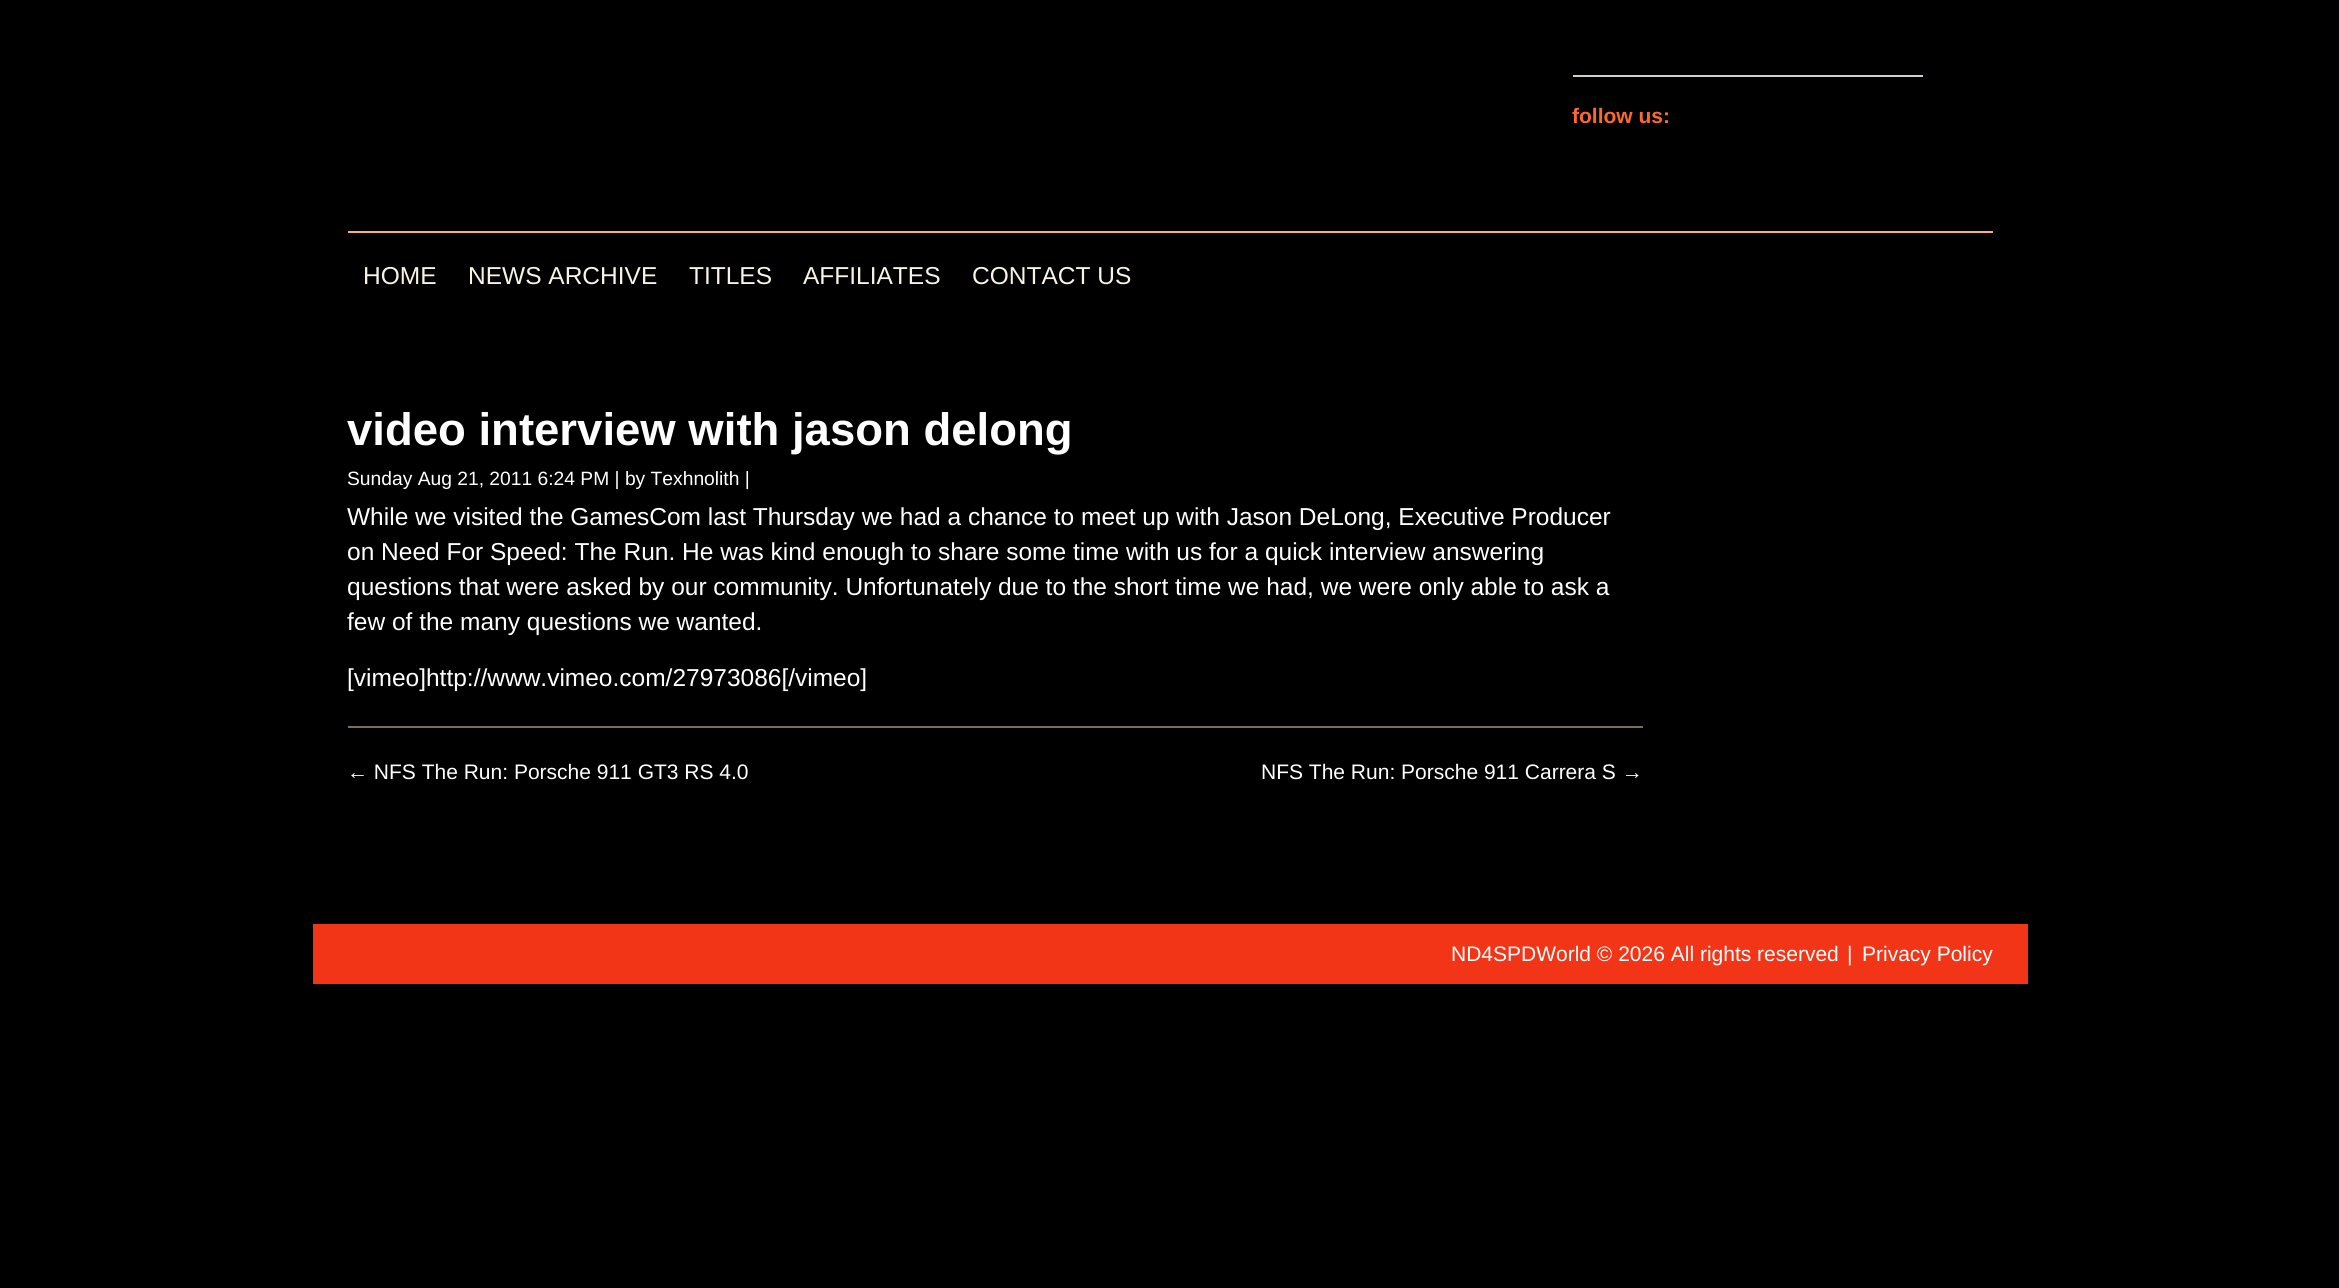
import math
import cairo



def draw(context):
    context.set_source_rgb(0, 0, 0)
    context.paint()
    context.set_source_rgb(216 / 255, 204 / 255, 188 / 255)
    context.rectangle(1573, 75, 350, 2)
    context.fill()
    context.set_source_rgb(1, 175 / 255, 127 / 255)
    context.rectangle(348, 231, 1645, 2)
    context.fill()
    context.set_source_rgb(125 / 255, 107 / 255, 94 / 255)
    context.rectangle(348, 726, 1295, 2)
    context.fill()
    context.set_source_rgb(241 / 255, 53 / 255, 22 / 255)
    context.rectangle(313, 924, 1715, 60)
    context.fill()
    context.select_font_face("Liberation Sans", cairo.FontSlant.NORMAL, cairo.FontWeight.BOLD)
    context.set_font_size(21)
    context.set_source_rgb(1, 104 / 255, 44 / 255)
    context.move_to(1572, 123)
    context.show_text("follow us:")
    context.select_font_face("Liberation Sans")
    context.set_font_size(24.5)
    context.set_source_rgb(249 / 255, 243 / 255, 228 / 255)
    context.move_to(363, 284)
    context.show_text("HOME")
    context.move_to(468, 284)
    context.show_text("NEWS ARCHIVE")
    context.move_to(689, 284)
    context.show_text("TITLES")
    context.move_to(803, 284)
    context.show_text("AFFILIATES")
    context.move_to(972, 284)
    context.show_text("CONTACT US")
    context.select_font_face("Liberation Sans", cairo.FontSlant.NORMAL, cairo.FontWeight.BOLD)
    context.set_font_size(45.5)
    context.set_source_rgb(1, 1, 1)
    context.move_to(347, 445)
    context.show_text("video interview with jason delong")
    context.select_font_face("Liberation Sans")
    context.set_font_size(19.25)
    context.move_to(347, 485)
    context.show_text("Sunday Aug 21, 2011 6:24 PM | by Texhnolith |")
    context.set_font_size(24.5)
    context.move_to(347, 525)
    context.show_text("While we visited the GamesCom last Thursday we had a chance to meet up with Jason DeLong, Executive Producer")
    context.move_to(347, 560)
    context.show_text("on Need For Speed: The Run. He was kind enough to share some time with us for a quick interview answering")
    context.move_to(347, 595)
    context.show_text("questions that were asked by our community. Unfortunately due to the short time we had, we were only able to ask a")
    context.move_to(347, 630)
    context.show_text("few of the many questions we wanted.")
    context.move_to(347, 686)
    context.show_text("[vimeo]http://www.vimeo.com/27973086[/vimeo]")
    context.set_font_size(21)
    context.move_to(347, 779)
    context.show_text("← NFS The Run: Porsche 911 GT3 RS 4.0")
    context.move_to(1261, 779)
    context.show_text("NFS The Run: Porsche 911 Carrera S →")
    context.move_to(1451, 961)
    context.show_text("ND4SPDWorld © 2026 All rights reserved")
    context.move_to(1847, 961)
    context.show_text("|")
    context.move_to(1862, 961)
    context.show_text("Privacy Policy")


surface = cairo.ImageSurface(cairo.Format.RGB24, 2339, 1288)
context = cairo.Context(surface)
options = cairo.FontOptions()
options.set_hint_metrics(cairo.HintMetrics.OFF)
options.set_hint_style(cairo.HintStyle.NONE)
context.set_font_options(options)
context.set_miter_limit(4)
draw(context)
surface.write_to_png("out.png")
